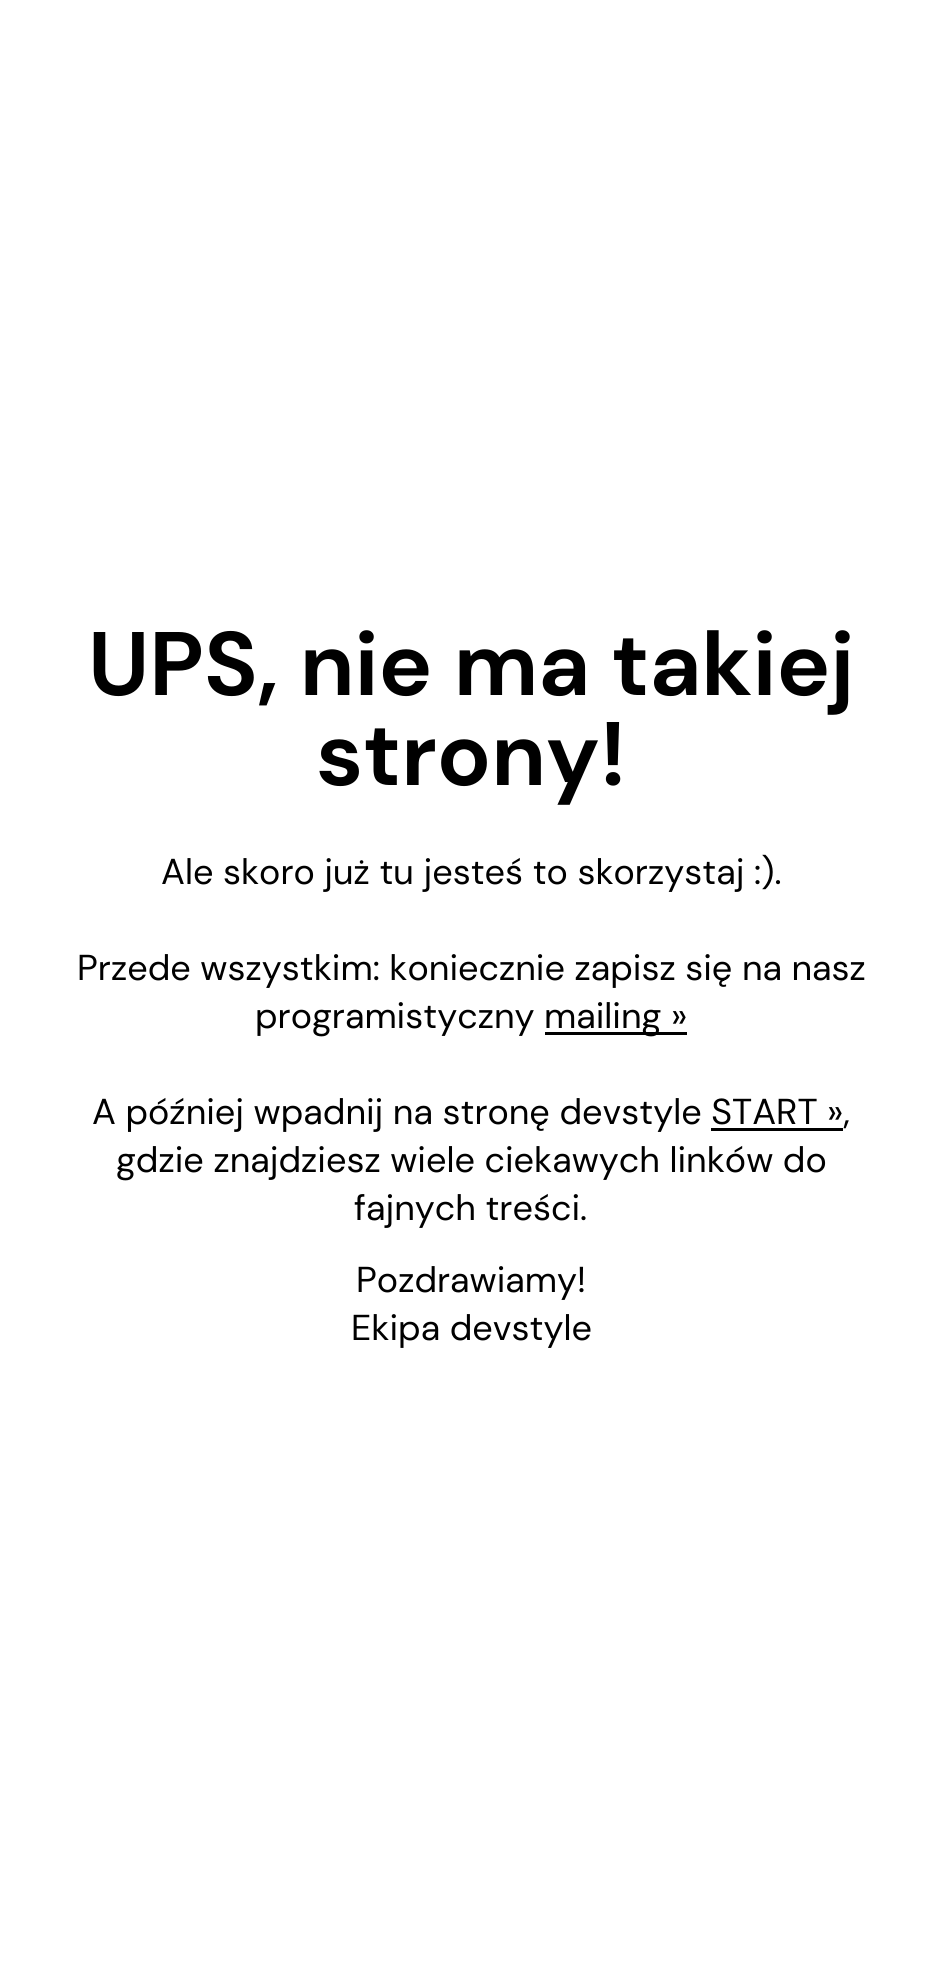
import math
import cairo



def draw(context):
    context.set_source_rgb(1, 1, 1)
    context.paint()
    context.set_source_rgb(0, 0, 0)
    context.rectangle(545, 1032, 142, 3)
    context.fill()
    context.rectangle(711, 1128, 132, 3)
    context.fill()
    context.select_font_face("DM Sans", cairo.FontSlant.NORMAL, cairo.FontWeight.BOLD)
    context.set_font_size(90)
    context.move_to(88, 695)
    context.show_text("UPS, nie ma takiej")
    context.move_to(316, 785)
    context.show_text("strony!")
    context.select_font_face("DM Sans")
    context.set_font_size(36)
    context.move_to(161, 884)
    context.show_text("Ale skoro już tu jesteś to skorzystaj :).")
    context.move_to(77, 980)
    context.show_text("Przede wszystkim: koniecznie zapisz się na nasz")
    context.move_to(255, 1028)
    context.show_text("programistyczny")
    context.move_to(544, 1028)
    context.show_text("mailing »")
    context.move_to(92, 1124)
    context.show_text("A później wpadnij na stronę devstyle START »,")
    context.move_to(116, 1172)
    context.show_text("gdzie znajdziesz wiele ciekawych linków do")
    context.move_to(354, 1220)
    context.show_text("fajnych treści.")
    context.move_to(356, 1292)
    context.show_text("Pozdrawiamy!")
    context.move_to(351, 1340)
    context.show_text("Ekipa devstyle")


surface = cairo.ImageSurface(cairo.Format.RGB24, 942, 1972)
context = cairo.Context(surface)
options = cairo.FontOptions()
options.set_hint_metrics(cairo.HintMetrics.OFF)
options.set_hint_style(cairo.HintStyle.NONE)
context.set_font_options(options)
context.set_miter_limit(4)
draw(context)
surface.write_to_png("out.png")
